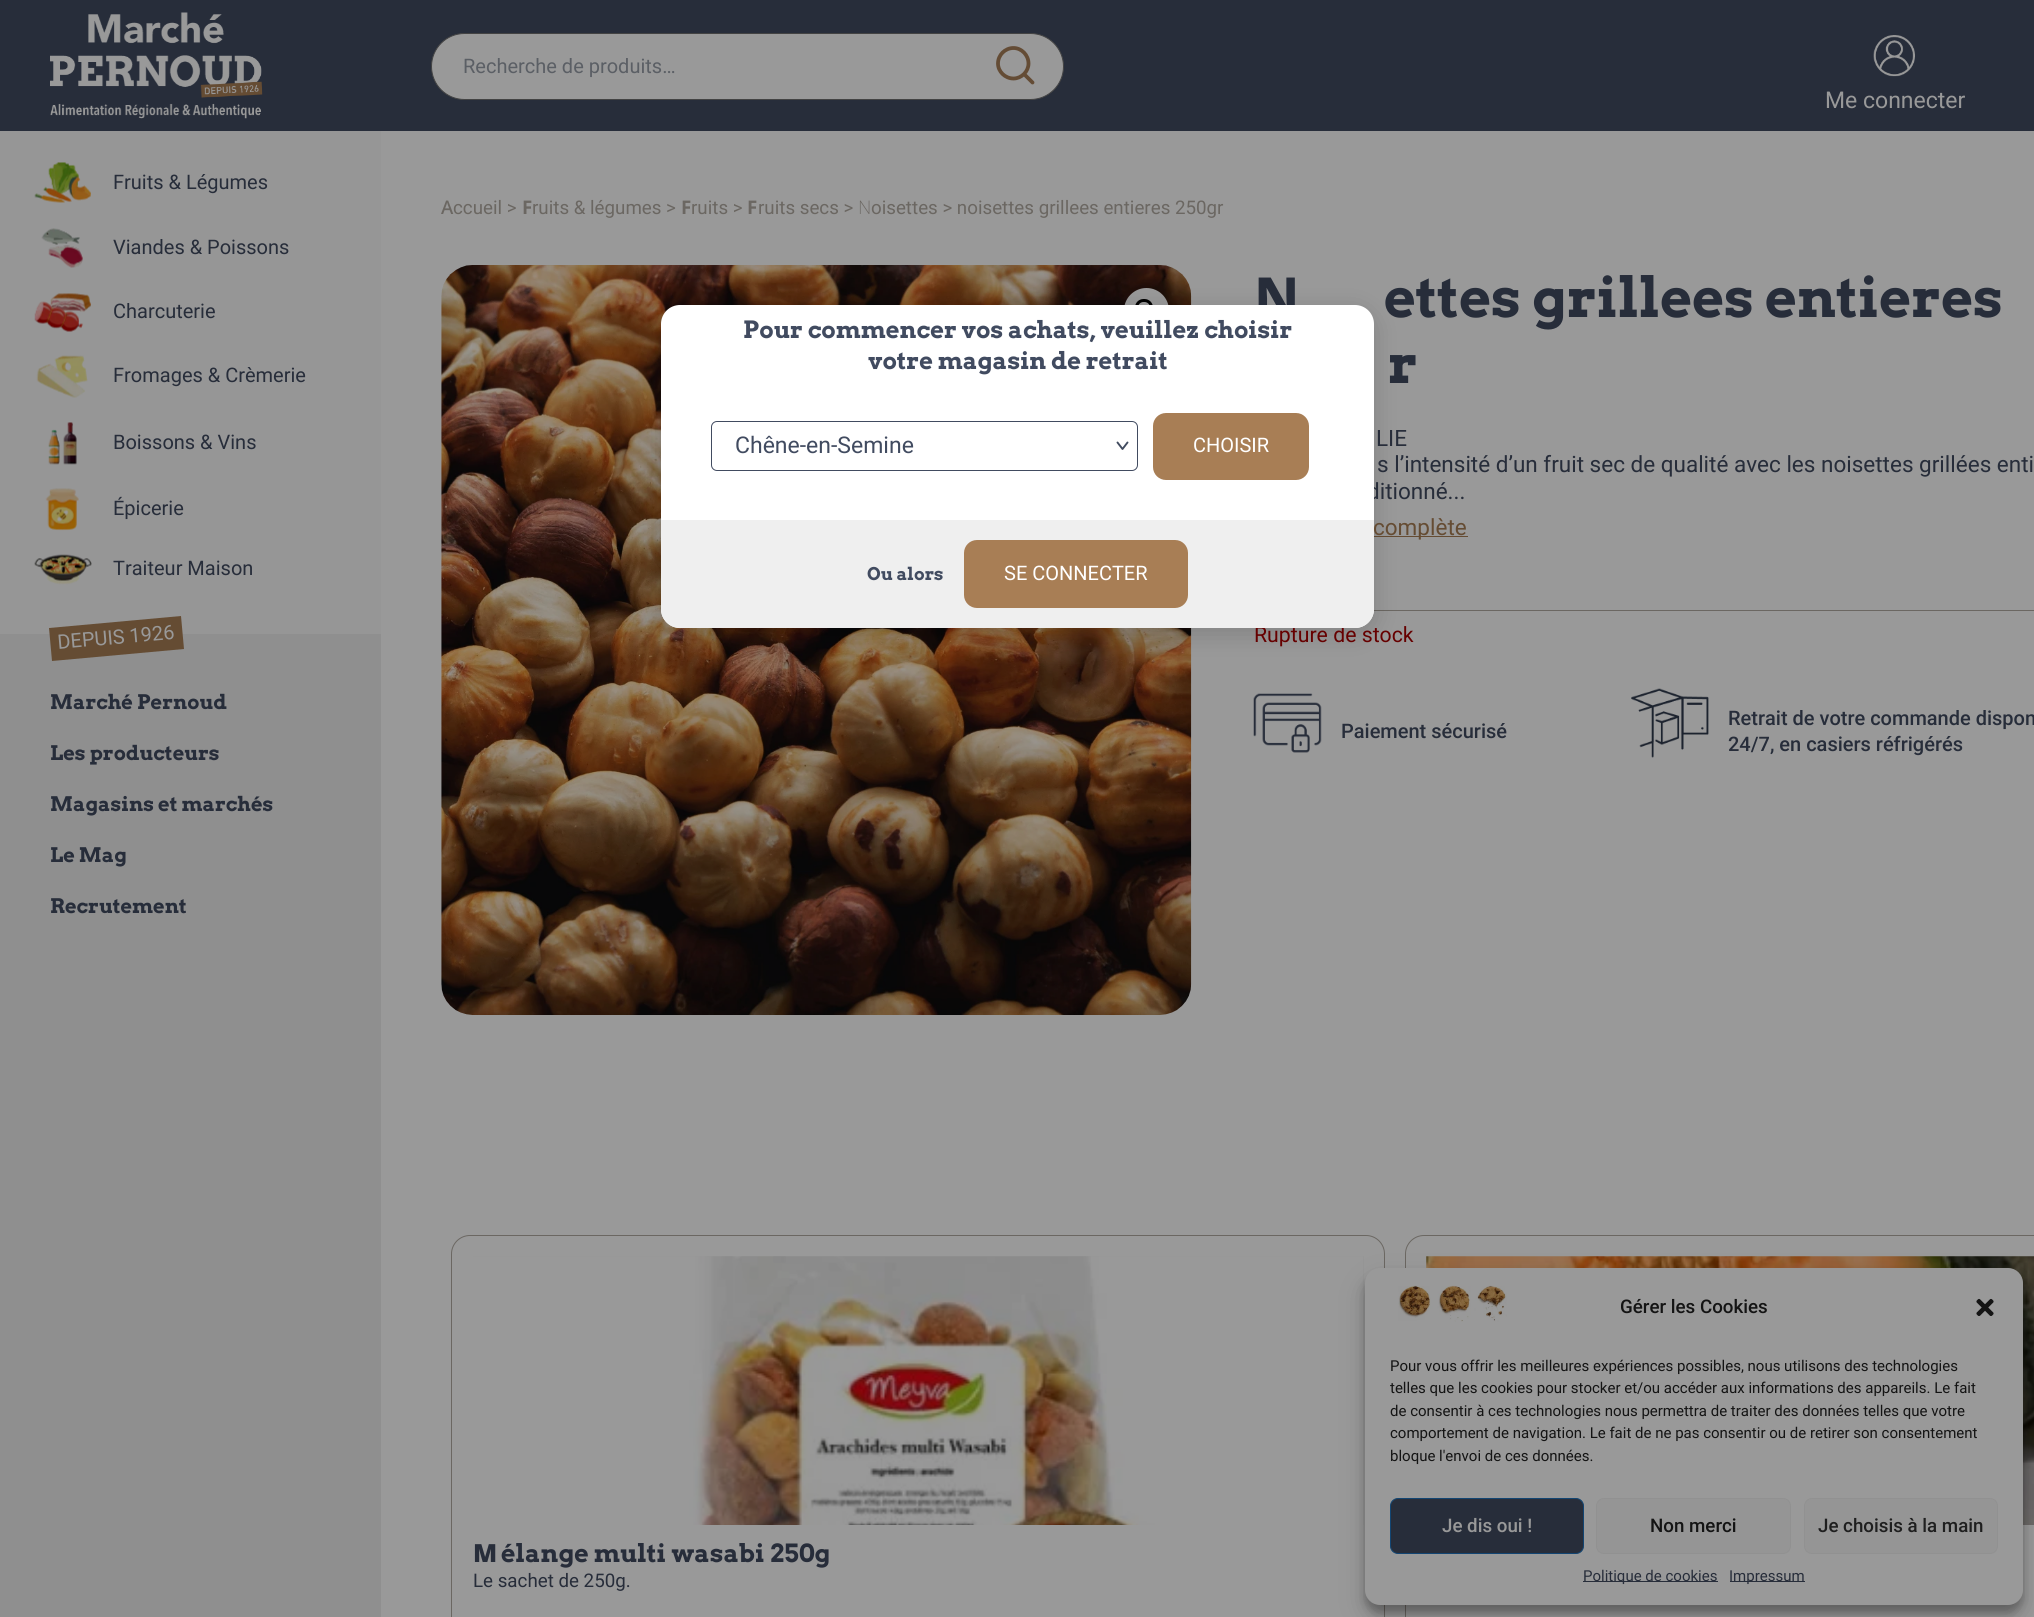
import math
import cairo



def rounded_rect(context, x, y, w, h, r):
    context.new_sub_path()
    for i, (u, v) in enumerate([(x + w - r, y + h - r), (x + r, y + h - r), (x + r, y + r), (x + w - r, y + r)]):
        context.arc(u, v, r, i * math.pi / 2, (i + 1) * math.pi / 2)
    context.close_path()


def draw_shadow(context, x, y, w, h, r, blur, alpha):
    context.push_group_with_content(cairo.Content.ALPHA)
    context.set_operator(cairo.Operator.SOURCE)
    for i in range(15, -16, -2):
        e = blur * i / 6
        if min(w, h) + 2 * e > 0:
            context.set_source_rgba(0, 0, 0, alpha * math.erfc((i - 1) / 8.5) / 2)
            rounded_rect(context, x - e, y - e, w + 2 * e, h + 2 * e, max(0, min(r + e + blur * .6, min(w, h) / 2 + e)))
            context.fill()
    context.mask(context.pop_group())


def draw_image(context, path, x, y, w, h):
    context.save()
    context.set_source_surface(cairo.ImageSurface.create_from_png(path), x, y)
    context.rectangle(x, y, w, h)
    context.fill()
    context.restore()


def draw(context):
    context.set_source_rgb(153 / 255, 153 / 255, 153 / 255)
    context.paint()
    context.set_source_rgb(39 / 255, 45 / 255, 58 / 255)
    context.rectangle(0, 0, 2034, 131)
    context.fill()
    context.set_source_rgb(153 / 255, 153 / 255, 153 / 255)
    rounded_rect(context, 431.5, 33.5, 632, 66, 33)
    context.fill_preserve()
    context.set_source_rgb(67 / 255, 67 / 255, 67 / 255)
    context.set_line_width(1)
    context.stroke()
    context.new_path()
    context.move_to(1028.5, 63.5)
    context.curve_to(1028.5, 71.5, 1021.5, 78.5, 1013.5, 78.5)
    context.curve_to(1005, 78.5, 998, 71.5, 998, 63.5)
    context.curve_to(998, 55, 1005, 48, 1013.5, 48)
    context.curve_to(1021.5, 48, 1028.5, 55, 1028.5, 63.5)
    context.close_path()
    context.move_to(1032.5, 82.5)
    context.line_to(1024, 74)
    context.set_source_rgb(100 / 255, 76 / 255, 53 / 255)
    context.set_line_width(3.8)
    context.set_line_cap(cairo.LineCap.ROUND)
    context.set_line_join(cairo.LineJoin.ROUND)
    context.stroke()
    draw_image(context, "images/1.png", 50, 12, 213, 107)
    draw_image(context, "images/2.png", 1873, 35, 42, 42)
    context.set_source_rgb(143 / 255, 143 / 255, 143 / 255)
    context.rectangle(0, 634, 381, 983)
    context.fill()
    context.set_source_rgb(150 / 255, 150 / 255, 150 / 255)
    context.rectangle(0, 131, 381, 503)
    context.fill()
    draw_image(context, "images/3.png", 34, 162, 57, 41)
    draw_image(context, "images/4.png", 41, 228, 42, 40)
    draw_image(context, "images/5.png", 34, 293, 57, 39)
    draw_image(context, "images/6.png", 36, 355, 52, 43)
    draw_image(context, "images/7.png", 48, 422, 29, 43)
    draw_image(context, "images/8.png", 45, 488, 34, 43)
    draw_image(context, "images/9.png", 34, 554, 58, 31)
    context.set_source_rgb(101 / 255, 76 / 255, 51 / 255)
    context.new_path()
    context.move_to(49, 628)
    context.line_to(181, 616)
    context.line_to(184, 649)
    context.line_to(52, 661)
    context.close_path()
    context.fill()
    draw_image(context, "images/10.png", 441, 265, 751, 750)
    context.set_source_rgb(153 / 255, 153 / 255, 153 / 255)
    context.arc(1146.5, 310.5, 22.5, 0, 2 * math.pi)
    context.fill()
    rounded_rect(context, 1136.5, 300.5, 15, 14, 7)
    context.set_source_rgb(0, 0, 0)
    context.set_line_width(3)
    context.set_line_cap(cairo.LineCap.BUTT)
    context.set_line_join(cairo.LineJoin.MITER)
    context.stroke()
    context.set_source_rgb(107 / 255, 103 / 255, 98 / 255)
    context.rectangle(1373, 610, 661, 1)
    context.fill()
    context.set_source_rgb(101 / 255, 76 / 255, 51 / 255)
    context.rectangle(1374, 536, 94, 1)
    context.fill()
    draw_image(context, "images/11.png", 1253, 693, 69, 60)
    draw_image(context, "images/12.png", 1631, 688, 78, 70)
    rounded_rect(context, 451.5, 1235.5, 933, 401, 18.5)
    context.set_source_rgb(107 / 255, 103 / 255, 98 / 255)
    context.set_line_width(1)
    context.stroke()
    context.set_source_rgb(150 / 255, 150 / 255, 150 / 255)
    context.rectangle(473, 1256, 891, 269)
    context.fill()
    draw_image(context, "images/13.png", 473, 1256, 890, 269)
    rounded_rect(context, 1405.5, 1235.5, 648, 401, 18.5)
    context.set_source_rgb(107 / 255, 103 / 255, 98 / 255)
    context.stroke()
    context.set_source_rgb(150 / 255, 150 / 255, 150 / 255)
    context.rectangle(1426, 1256, 608, 12)
    context.fill()
    draw_image(context, "images/14.png", 1426, 1256, 608, 269)
    context.set_source_rgb(0, 0, 0)
    draw_shadow(context, 661, 311, 713, 323, 19, 12.5, 0.16)
    draw_shadow(context, 1365, 1275, 658, 338, 15, 4, 0.23)
    draw_shadow(context, 1365, 1280, 658, 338, 15, 12.5, 0.19)
    context.set_source_rgb(153 / 255, 153 / 255, 153 / 255)
    rounded_rect(context, 1365, 1268, 658, 337, 15)
    context.fill()
    draw_image(context, "images/15.png", 1398, 1285, 109, 37)
    draw_image(context, "images/16.png", 1976, 1298, 18, 18)
    context.set_source_rgb(39 / 255, 45 / 255, 58 / 255)
    rounded_rect(context, 1390.5, 1498.5, 193, 55, 7.5)
    context.fill_preserve()
    context.set_source_rgb(18 / 255, 69 / 255, 114 / 255)
    context.stroke()
    context.set_source_rgb(149 / 255, 149 / 255, 149 / 255)
    rounded_rect(context, 1596.5, 1498.5, 194, 55, 7.5)
    context.fill_preserve()
    context.set_source_rgb(145 / 255, 145 / 255, 145 / 255)
    context.stroke()
    context.set_source_rgb(149 / 255, 149 / 255, 149 / 255)
    rounded_rect(context, 1804.5, 1498.5, 193, 55, 7.5)
    context.fill_preserve()
    context.set_source_rgb(145 / 255, 145 / 255, 145 / 255)
    context.stroke()
    context.set_source_rgb(39 / 255, 45 / 255, 58 / 255)
    context.rectangle(1583, 1581, 135, 1)
    context.fill()
    context.rectangle(1730, 1581, 75, 1)
    context.fill()
    context.select_font_face("Roboto")
    context.set_font_size(20)
    context.set_source_rgb(91 / 255, 95 / 255, 101 / 255)
    context.move_to(463, 73)
    context.show_text("Recherche de produits…")
    context.set_font_size(23)
    context.set_source_rgb(153 / 255, 153 / 255, 153 / 255)
    context.move_to(1825, 108)
    context.show_text("Me connecter")
    context.set_font_size(20)
    context.set_source_rgb(39 / 255, 45 / 255, 58 / 255)
    context.move_to(113, 189)
    context.show_text("Fruits & Légumes")
    context.move_to(113, 254)
    context.show_text("Viandes & Poissons")
    context.move_to(113, 318)
    context.show_text("Charcuterie")
    context.move_to(113, 382)
    context.show_text("Fromages & Crèmerie")
    context.move_to(113, 449)
    context.show_text("Boissons & Vins")
    context.move_to(113, 515)
    context.show_text("Épicerie")
    context.move_to(113, 575)
    context.show_text("Traiteur Maison")
    context.set_source_rgb(153 / 255, 153 / 255, 153 / 255)
    context.save()
    context.translate(58, 649)
    context.rotate(-5 * math.pi / 180)
    context.move_to(0, 0)
    context.show_text("DEPUIS 1926")
    context.restore()
    context.select_font_face("Arvo", cairo.FontSlant.NORMAL, cairo.FontWeight.BOLD)
    context.set_source_rgb(39 / 255, 45 / 255, 58 / 255)
    context.move_to(50, 709)
    context.show_text("Marché Pernoud")
    context.move_to(50, 760)
    context.show_text("Les producteurs")
    context.move_to(50, 811)
    context.show_text("Magasins et marchés")
    context.move_to(50, 862)
    context.show_text("Le Mag")
    context.move_to(50, 913)
    context.show_text("Recrutement")
    context.select_font_face("Noto Sans Medium")
    context.set_font_size(18.75)
    context.set_source_rgb(107 / 255, 103 / 255, 98 / 255)
    context.move_to(441, 214)
    context.show_text("A")
    context.select_font_face("Roboto")
    context.move_to(453, 214)
    context.show_text("ccueil >")
    context.select_font_face("Noto Sans", cairo.FontSlant.NORMAL, cairo.FontWeight.BOLD)
    context.move_to(522, 214)
    context.show_text("F")
    context.select_font_face("Roboto")
    context.move_to(532, 214)
    context.show_text("ruits & légumes >")
    context.select_font_face("Noto Sans", cairo.FontSlant.NORMAL, cairo.FontWeight.BOLD)
    context.move_to(681, 214)
    context.show_text("F")
    context.select_font_face("Roboto")
    context.move_to(691, 214)
    context.show_text("ruits >")
    context.select_font_face("Noto Sans", cairo.FontSlant.NORMAL, cairo.FontWeight.BOLD)
    context.move_to(747, 214)
    context.show_text("F")
    context.select_font_face("Roboto")
    context.move_to(758, 214)
    context.show_text("ruits secs >")
    context.select_font_face("Noto Sans ExtraLight")
    context.move_to(858, 214)
    context.show_text("N")
    context.select_font_face("Roboto")
    context.move_to(871, 214)
    context.show_text("oisettes > noisettes grillees entieres 250gr")
    context.select_font_face("Noto Sans ExtraBold")
    context.set_font_size(55.25)
    context.set_source_rgb(39 / 255, 45 / 255, 58 / 255)
    context.move_to(1254, 317)
    context.show_text("N")
    context.select_font_face("Arvo", cairo.FontSlant.NORMAL, cairo.FontWeight.BOLD)
    context.move_to(1384, 317)
    context.show_text("ettes grillees entieres")
    context.move_to(1388, 383)
    context.show_text("r")
    context.select_font_face("Roboto")
    context.set_font_size(22.5)
    context.move_to(1376, 446)
    context.show_text("LIE")
    context.move_to(1377, 472)
    context.show_text("s l’intensité d’un fruit sec de qualité avec les noisettes grillées enti")
    context.move_to(1367, 499)
    context.show_text("ditionné...")
    context.set_source_rgb(101 / 255, 76 / 255, 51 / 255)
    context.move_to(1373, 535)
    context.show_text("complète")
    context.set_font_size(21.25)
    context.set_source_rgb(102 / 255, 0, 0)
    context.move_to(1254, 642)
    context.show_text("Rupture de stock")
    context.select_font_face("Roboto Medium")
    context.set_font_size(20)
    context.set_source_rgb(39 / 255, 45 / 255, 58 / 255)
    context.move_to(1341, 738)
    context.show_text("Paiement sécurisé")
    context.move_to(1728, 725)
    context.show_text("Retrait de votre commande dispon")
    context.move_to(1728, 751)
    context.show_text("24/7, en casiers réfrigérés")
    context.select_font_face("Noto Sans Black")
    context.set_font_size(25)
    context.move_to(473, 1562)
    context.show_text("M")
    context.select_font_face("Arvo", cairo.FontSlant.NORMAL, cairo.FontWeight.BOLD)
    context.move_to(501, 1562)
    context.show_text("élange multi wasabi 250g")
    context.select_font_face("Roboto")
    context.set_font_size(18.75)
    context.move_to(473, 1587)
    context.show_text("Le sachet de 250g.")
    context.set_source_rgb(1, 1, 1)
    rounded_rect(context, 661, 305, 713, 323, 19)
    context.fill()
    context.select_font_face("Arvo", cairo.FontSlant.NORMAL, cairo.FontWeight.BOLD)
    context.set_font_size(23.75)
    context.set_source_rgb(65 / 255, 75 / 255, 96 / 255)
    context.move_to(743, 338)
    context.show_text("Pour commencer vos achats, veuillez choisir")
    context.move_to(868, 369)
    context.show_text("votre magasin de retrait")
    context.new_path()
    context.move_to(1127.5, 442.5)
    context.line_to(1122.5, 449)
    context.line_to(1117.5, 442.5)
    context.set_source_rgb(65 / 255, 75 / 255, 95 / 255)
    context.set_line_width(1.9)
    context.set_line_cap(cairo.LineCap.ROUND)
    context.set_line_join(cairo.LineJoin.ROUND)
    context.stroke()
    rounded_rect(context, 711.5, 421.5, 426, 49, 5.5)
    context.set_source_rgb(65 / 255, 75 / 255, 96 / 255)
    context.set_line_width(1)
    context.set_line_cap(cairo.LineCap.BUTT)
    context.set_line_join(cairo.LineJoin.MITER)
    context.stroke()
    context.select_font_face("Roboto")
    context.set_font_size(23)
    context.move_to(735, 453)
    context.show_text("Chêne-en-Semine")
    context.set_source_rgb(168 / 255, 126 / 255, 85 / 255)
    rounded_rect(context, 1153, 413, 156, 67, 13)
    context.fill()
    context.set_font_size(20)
    context.set_source_rgb(1, 1, 1)
    context.move_to(1193, 452)
    context.show_text("CHOISIR")
    context.set_source_rgb(239 / 255, 239 / 255, 239 / 255)
    context.new_path()
    context.move_to(661, 520)
    context.line_to(1374, 520)
    context.line_to(1374, 609)
    context.curve_to(1374, 619.5, 1365.5, 628, 1355, 628)
    context.line_to(680, 628)
    context.curve_to(669.5, 628, 661, 619.5, 661, 609)
    context.close_path()
    context.fill()
    context.select_font_face("Arvo", cairo.FontSlant.NORMAL, cairo.FontWeight.BOLD)
    context.set_font_size(17.5)
    context.set_source_rgb(65 / 255, 75 / 255, 96 / 255)
    context.move_to(867, 580)
    context.show_text("Ou alors")
    context.set_source_rgb(168 / 255, 126 / 255, 85 / 255)
    rounded_rect(context, 964, 540, 224, 68, 13)
    context.fill()
    context.select_font_face("Roboto")
    context.set_font_size(20)
    context.set_source_rgb(1, 1, 1)
    context.move_to(1004, 580)
    context.show_text("SE CONNECTER")
    context.select_font_face("Roboto Medium")
    context.set_font_size(18.75)
    context.set_source_rgb(20 / 255, 20 / 255, 20 / 255)
    context.move_to(1620, 1313)
    context.show_text("Gérer les Cookies")
    context.select_font_face("Roboto")
    context.set_font_size(15)
    context.move_to(1390, 1371)
    context.show_text("Pour vous offrir les meilleures expériences possibles, nous utilisons des technologies")
    context.move_to(1390, 1393)
    context.show_text("telles que les cookies pour stocker et/ou accéder aux informations des appareils. Le fait")
    context.move_to(1390, 1416)
    context.show_text("de consentir à ces technologies nous permettra de traiter des données telles que votre")
    context.move_to(1390, 1438)
    context.show_text("comportement de navigation. Le fait de ne pas consentir ou de retirer son consentement")
    context.move_to(1390, 1461)
    context.show_text("bloque l'envoi de ces données.")
    context.select_font_face("Roboto Medium")
    context.set_font_size(18.75)
    context.set_source_rgb(153 / 255, 153 / 255, 153 / 255)
    context.move_to(1442, 1532)
    context.show_text("Je dis oui !")
    context.set_source_rgb(20 / 255, 20 / 255, 20 / 255)
    context.move_to(1650, 1532)
    context.show_text("Non merci")
    context.set_source_rgb(31 / 255, 31 / 255, 31 / 255)
    context.move_to(1818, 1532)
    context.show_text("Je choisis à la main")
    context.select_font_face("Roboto")
    context.set_font_size(15)
    context.set_source_rgb(39 / 255, 45 / 255, 58 / 255)
    context.move_to(1583, 1581)
    context.show_text("Politique de cookies")
    context.move_to(1729, 1581)
    context.show_text("Impressum")


surface = cairo.ImageSurface(cairo.Format.RGB24, 2034, 1617)
context = cairo.Context(surface)
options = cairo.FontOptions()
options.set_hint_metrics(cairo.HintMetrics.OFF)
options.set_hint_style(cairo.HintStyle.NONE)
context.set_font_options(options)
context.set_miter_limit(4)
draw(context)
surface.write_to_png("out.png")
